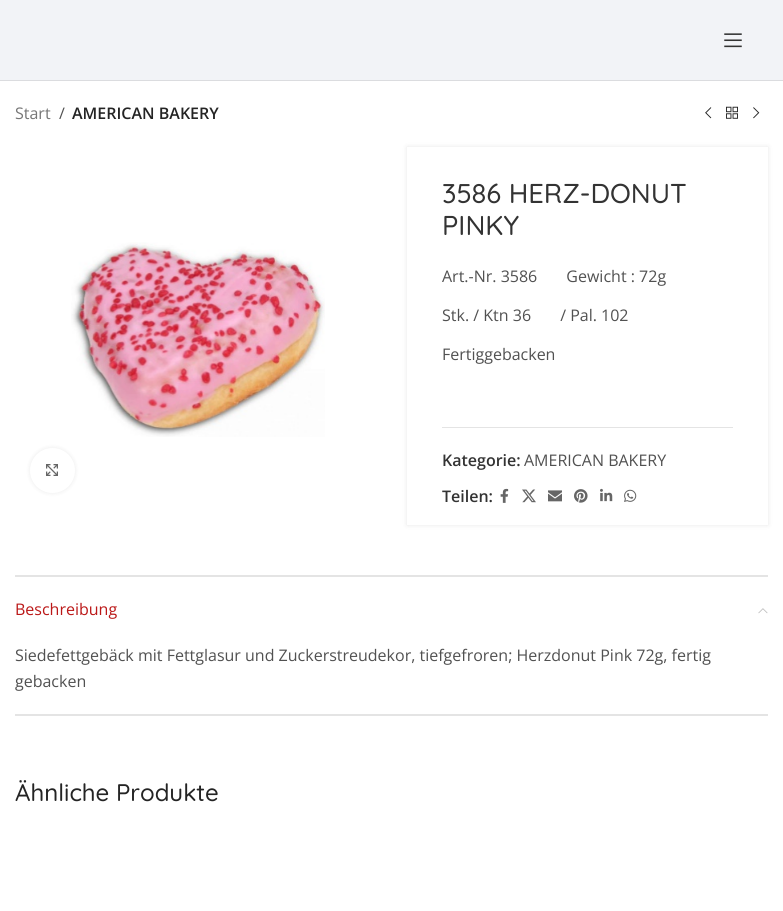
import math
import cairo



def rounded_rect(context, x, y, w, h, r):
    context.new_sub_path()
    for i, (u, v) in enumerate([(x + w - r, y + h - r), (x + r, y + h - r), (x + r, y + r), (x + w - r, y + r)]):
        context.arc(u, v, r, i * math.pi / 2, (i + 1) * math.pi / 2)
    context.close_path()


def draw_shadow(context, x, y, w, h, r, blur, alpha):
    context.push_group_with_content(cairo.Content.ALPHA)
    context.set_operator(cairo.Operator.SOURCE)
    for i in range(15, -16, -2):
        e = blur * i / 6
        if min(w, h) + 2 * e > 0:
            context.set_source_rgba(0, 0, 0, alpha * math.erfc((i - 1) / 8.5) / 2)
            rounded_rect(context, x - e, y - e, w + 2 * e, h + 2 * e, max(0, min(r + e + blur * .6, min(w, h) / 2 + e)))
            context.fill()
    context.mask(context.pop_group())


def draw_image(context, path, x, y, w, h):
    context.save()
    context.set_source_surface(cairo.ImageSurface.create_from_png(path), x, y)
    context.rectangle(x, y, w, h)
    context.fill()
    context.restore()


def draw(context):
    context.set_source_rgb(1, 1, 1)
    context.paint()
    context.set_source_rgb(242 / 255, 243 / 255, 247 / 255)
    context.rectangle(0, 0, 783, 80)
    context.fill()
    context.set_source_rgb(219 / 255, 220 / 255, 223 / 255)
    context.rectangle(0, 80, 783, 1)
    context.fill()
    draw_image(context, "images/1.png", 724, 33, 18, 15)
    draw_image(context, "images/2.png", 705, 107, 7, 12)
    draw_image(context, "images/3.png", 726, 106, 12, 13)
    draw_image(context, "images/4.png", 753, 107, 7, 12)
    draw_image(context, "images/5.png", 71, 242, 254, 195)
    context.set_source_rgb(0, 0, 0)
    draw_shadow(context, 30, 448, 45, 45, 22.5, 2.5, 0.08)
    context.set_source_rgb(1, 1, 1)
    context.arc(52.5, 470.5, 22.5, 0, 2 * math.pi)
    context.fill()
    draw_image(context, "images/6.png", 46, 464, 12, 12)
    context.save()
    context.set_fill_rule(cairo.FillRule.EVEN_ODD)
    context.new_path()
    context.move_to(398, 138)
    context.line_to(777, 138)
    context.line_to(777, 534)
    context.line_to(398, 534)
    context.close_path()
    context.move_to(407, 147)
    context.line_to(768, 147)
    context.line_to(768, 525)
    context.line_to(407, 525)
    context.close_path()
    context.clip()
    context.set_source_rgb(0, 0, 0)
    draw_shadow(context, 407, 147, 361, 378, 0, 2.5, 0.1)
    context.restore()
    context.set_source_rgb(228 / 255, 228 / 255, 228 / 255)
    context.rectangle(442, 427, 291, 1)
    context.fill()
    draw_image(context, "images/7.png", 500, 488, 9, 15)
    draw_image(context, "images/8.png", 522, 489, 14, 14)
    draw_image(context, "images/9.png", 548, 490, 14, 12)
    draw_image(context, "images/10.png", 574, 489, 14, 14)
    draw_image(context, "images/11.png", 600, 488, 13, 14)
    draw_image(context, "images/12.png", 624, 489, 13, 13)
    context.rectangle(15, 575, 753, 2)
    context.fill()
    context.rectangle(15, 714, 753, 2)
    context.fill()
    draw_image(context, "images/13.png", 758, 608, 10, 6)
    context.select_font_face("Open Sans")
    context.set_font_size(16)
    context.set_source_rgb(118 / 255, 118 / 255, 118 / 255)
    context.move_to(15, 119)
    context.show_text("Start")
    context.set_source_rgb(81 / 255, 81 / 255, 81 / 255)
    context.move_to(59, 119)
    context.show_text("/")
    context.select_font_face("Open Sans SemiBold")
    context.set_source_rgb(36 / 255, 36 / 255, 36 / 255)
    context.move_to(72, 119)
    context.show_text("AMERICAN BAKERY")
    context.select_font_face("Quicksand Medium")
    context.set_font_size(27.25)
    context.set_source_rgb(51 / 255, 51 / 255, 51 / 255)
    context.move_to(442, 203)
    context.show_text("3586 HERZ-DONUT")
    context.move_to(442, 235)
    context.show_text("PINKY")
    context.select_font_face("Open Sans")
    context.set_font_size(16)
    context.set_source_rgb(81 / 255, 81 / 255, 81 / 255)
    context.move_to(442, 282)
    context.show_text("Art.-Nr. 3586       Gewicht : 72g")
    context.move_to(442, 321)
    context.show_text("Stk. / Ktn 36       / Pal. 102")
    context.move_to(442, 360)
    context.show_text("Fertiggebacken")
    context.select_font_face("Open Sans SemiBold")
    context.set_source_rgb(51 / 255, 51 / 255, 51 / 255)
    context.move_to(442, 466)
    context.show_text("Kategorie:")
    context.select_font_face("Open Sans")
    context.set_source_rgb(81 / 255, 81 / 255, 81 / 255)
    context.move_to(524, 466)
    context.show_text("AMERICAN BAKERY")
    context.select_font_face("Open Sans SemiBold")
    context.set_source_rgb(51 / 255, 51 / 255, 51 / 255)
    context.move_to(442, 502)
    context.show_text("Teilen:")
    context.select_font_face("Open Sans")
    context.set_source_rgb(187 / 255, 24 / 255, 24 / 255)
    context.move_to(15, 615)
    context.show_text("Beschreibung")
    context.set_source_rgb(81 / 255, 81 / 255, 81 / 255)
    context.move_to(15, 661)
    context.show_text("Siedefettgebäck mit Fettglasur und Zuckerstreudekor, tiefgefroren; Herzdonut Pink 72g, fertig")
    context.move_to(15, 687)
    context.show_text("gebacken")
    context.select_font_face("Quicksand Medium")
    context.set_font_size(24)
    context.set_source_rgb(36 / 255, 36 / 255, 36 / 255)
    context.move_to(15, 801)
    context.show_text("Ähnliche Produkte")


surface = cairo.ImageSurface(cairo.Format.RGB24, 783, 911)
context = cairo.Context(surface)
options = cairo.FontOptions()
options.set_hint_metrics(cairo.HintMetrics.OFF)
options.set_hint_style(cairo.HintStyle.NONE)
context.set_font_options(options)
context.set_miter_limit(4)
draw(context)
surface.write_to_png("out.png")
